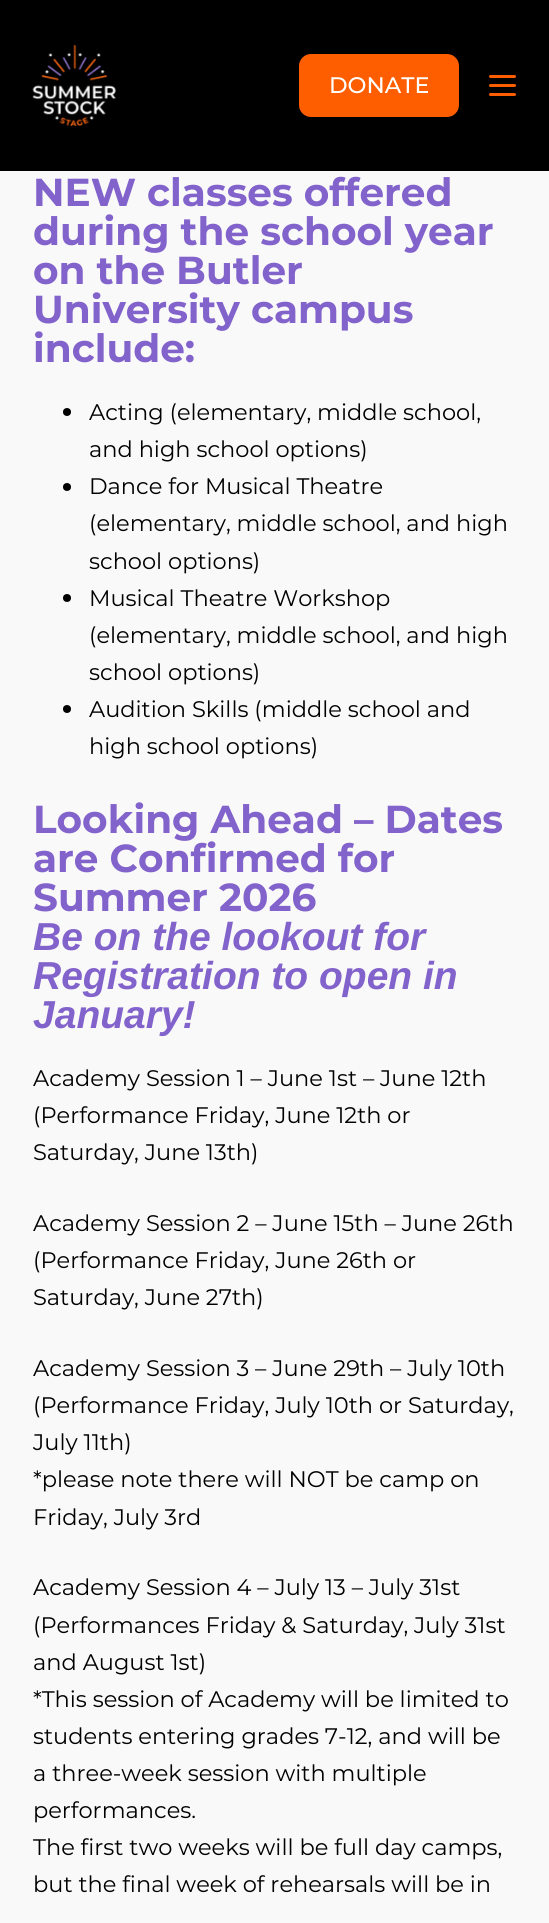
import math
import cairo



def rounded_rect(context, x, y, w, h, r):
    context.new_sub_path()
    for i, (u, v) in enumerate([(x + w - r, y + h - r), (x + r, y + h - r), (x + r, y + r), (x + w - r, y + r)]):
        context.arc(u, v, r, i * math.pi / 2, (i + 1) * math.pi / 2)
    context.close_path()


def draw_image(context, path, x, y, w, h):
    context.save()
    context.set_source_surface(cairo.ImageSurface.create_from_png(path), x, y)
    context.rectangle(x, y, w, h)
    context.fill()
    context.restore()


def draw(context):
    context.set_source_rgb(249 / 255, 249 / 255, 249 / 255)
    context.paint()
    context.set_source_rgb(0, 0, 0)
    context.rectangle(0, 0, 549, 171)
    context.fill()
    draw_image(context, "images/1.png", 32, 45, 84, 81)
    context.set_source_rgb(1, 94 / 255, 0)
    rounded_rect(context, 299, 54, 160, 63, 12)
    context.fill()
    rounded_rect(context, 489, 75, 27, 3, 1.5)
    context.fill()
    rounded_rect(context, 489, 84, 27, 3, 1.5)
    context.fill()
    rounded_rect(context, 489, 93, 27, 3, 1.5)
    context.fill()
    context.set_source_rgb(0, 0, 0)
    context.arc(67, 412, 4, 0, 2 * math.pi)
    context.fill()
    context.arc(67, 487, 4, 0, 2 * math.pi)
    context.fill()
    context.arc(67, 598, 4, 0, 2 * math.pi)
    context.fill()
    context.arc(67, 709, 4, 0, 2 * math.pi)
    context.fill()
    context.select_font_face("Montserrat Medium")
    context.set_font_size(22.5)
    context.set_source_rgb(1, 1, 1)
    context.move_to(329, 93)
    context.show_text("DONATE")
    context.select_font_face("Montserrat", cairo.FontSlant.NORMAL, cairo.FontWeight.BOLD)
    context.set_font_size(39)
    context.set_source_rgb(130 / 255, 98 / 255, 203 / 255)
    context.move_to(33, 206)
    context.show_text("NEW classes offered")
    context.move_to(33, 245)
    context.show_text("during the school year")
    context.move_to(33, 284)
    context.show_text("on the Butler")
    context.move_to(33, 323)
    context.show_text("University campus")
    context.move_to(33, 362)
    context.show_text("include:")
    context.select_font_face("Montserrat")
    context.set_font_size(22.5)
    context.set_source_rgb(0, 0, 0)
    context.move_to(89, 420)
    context.show_text("Acting (elementary, middle school,")
    context.move_to(89, 457)
    context.show_text("and high school options)")
    context.move_to(89, 494)
    context.show_text("Dance for Musical Theatre")
    context.move_to(89, 531)
    context.show_text("(elementary, middle school, and high")
    context.move_to(89, 569)
    context.show_text("school options)")
    context.move_to(89, 606)
    context.show_text("Musical Theatre Workshop")
    context.move_to(89, 643)
    context.show_text("(elementary, middle school, and high")
    context.move_to(89, 680)
    context.show_text("school options)")
    context.move_to(89, 717)
    context.show_text("Audition Skills (middle school and")
    context.move_to(89, 754)
    context.show_text("high school options)")
    context.select_font_face("Montserrat", cairo.FontSlant.NORMAL, cairo.FontWeight.BOLD)
    context.set_font_size(39)
    context.set_source_rgb(130 / 255, 98 / 255, 203 / 255)
    context.move_to(33, 833)
    context.show_text("Looking Ahead – Dates")
    context.move_to(33, 872)
    context.show_text("are Confirmed for")
    context.move_to(33, 911)
    context.show_text("Summer 2026")
    context.select_font_face("Liberation Sans", cairo.FontSlant.ITALIC, cairo.FontWeight.BOLD)
    context.move_to(33, 950)
    context.show_text("Be on the lookout for")
    context.move_to(33, 989)
    context.show_text("Registration to open in")
    context.move_to(33, 1028)
    context.show_text("January!")
    context.select_font_face("Montserrat")
    context.set_font_size(22.5)
    context.set_source_rgb(0, 0, 0)
    context.move_to(33, 1086)
    context.show_text("Academy Session 1 – June 1st – June 12th")
    context.move_to(33, 1123)
    context.show_text("(Performance Friday, June 12th or")
    context.move_to(33, 1160)
    context.show_text("Saturday, June 13th)")
    context.move_to(33, 1231)
    context.show_text("Academy Session 2 – June 15th – June 26th")
    context.move_to(33, 1268)
    context.show_text("(Performance Friday, June 26th or")
    context.move_to(33, 1305)
    context.show_text("Saturday, June 27th)")
    context.move_to(33, 1376)
    context.show_text("Academy Session 3 – June 29th – July 10th")
    context.move_to(33, 1413)
    context.show_text("(Performance Friday, July 10th or Saturday,")
    context.move_to(33, 1450)
    context.show_text("July 11th)")
    context.move_to(33, 1487)
    context.show_text("*please note there will NOT be camp on")
    context.move_to(33, 1525)
    context.show_text("Friday, July 3rd")
    context.move_to(33, 1595)
    context.show_text("Academy Session 4 – July 13 – July 31st")
    context.move_to(33, 1633)
    context.show_text("(Performances Friday & Saturday, July 31st")
    context.move_to(33, 1670)
    context.show_text("and August 1st)")
    context.move_to(33, 1707)
    context.show_text("*This session of Academy will be limited to")
    context.move_to(33, 1744)
    context.show_text("students entering grades 7-12, and will be")
    context.move_to(33, 1781)
    context.show_text("a three-week session with multiple")
    context.move_to(33, 1818)
    context.show_text("performances.")
    context.move_to(33, 1855)
    context.show_text("The first two weeks will be full day camps,")
    context.move_to(33, 1892)
    context.show_text("but the final week of rehearsals will be in")


surface = cairo.ImageSurface(cairo.Format.RGB24, 549, 1923)
context = cairo.Context(surface)
options = cairo.FontOptions()
options.set_hint_metrics(cairo.HintMetrics.OFF)
options.set_hint_style(cairo.HintStyle.NONE)
context.set_font_options(options)
context.set_miter_limit(4)
draw(context)
surface.write_to_png("out.png")
